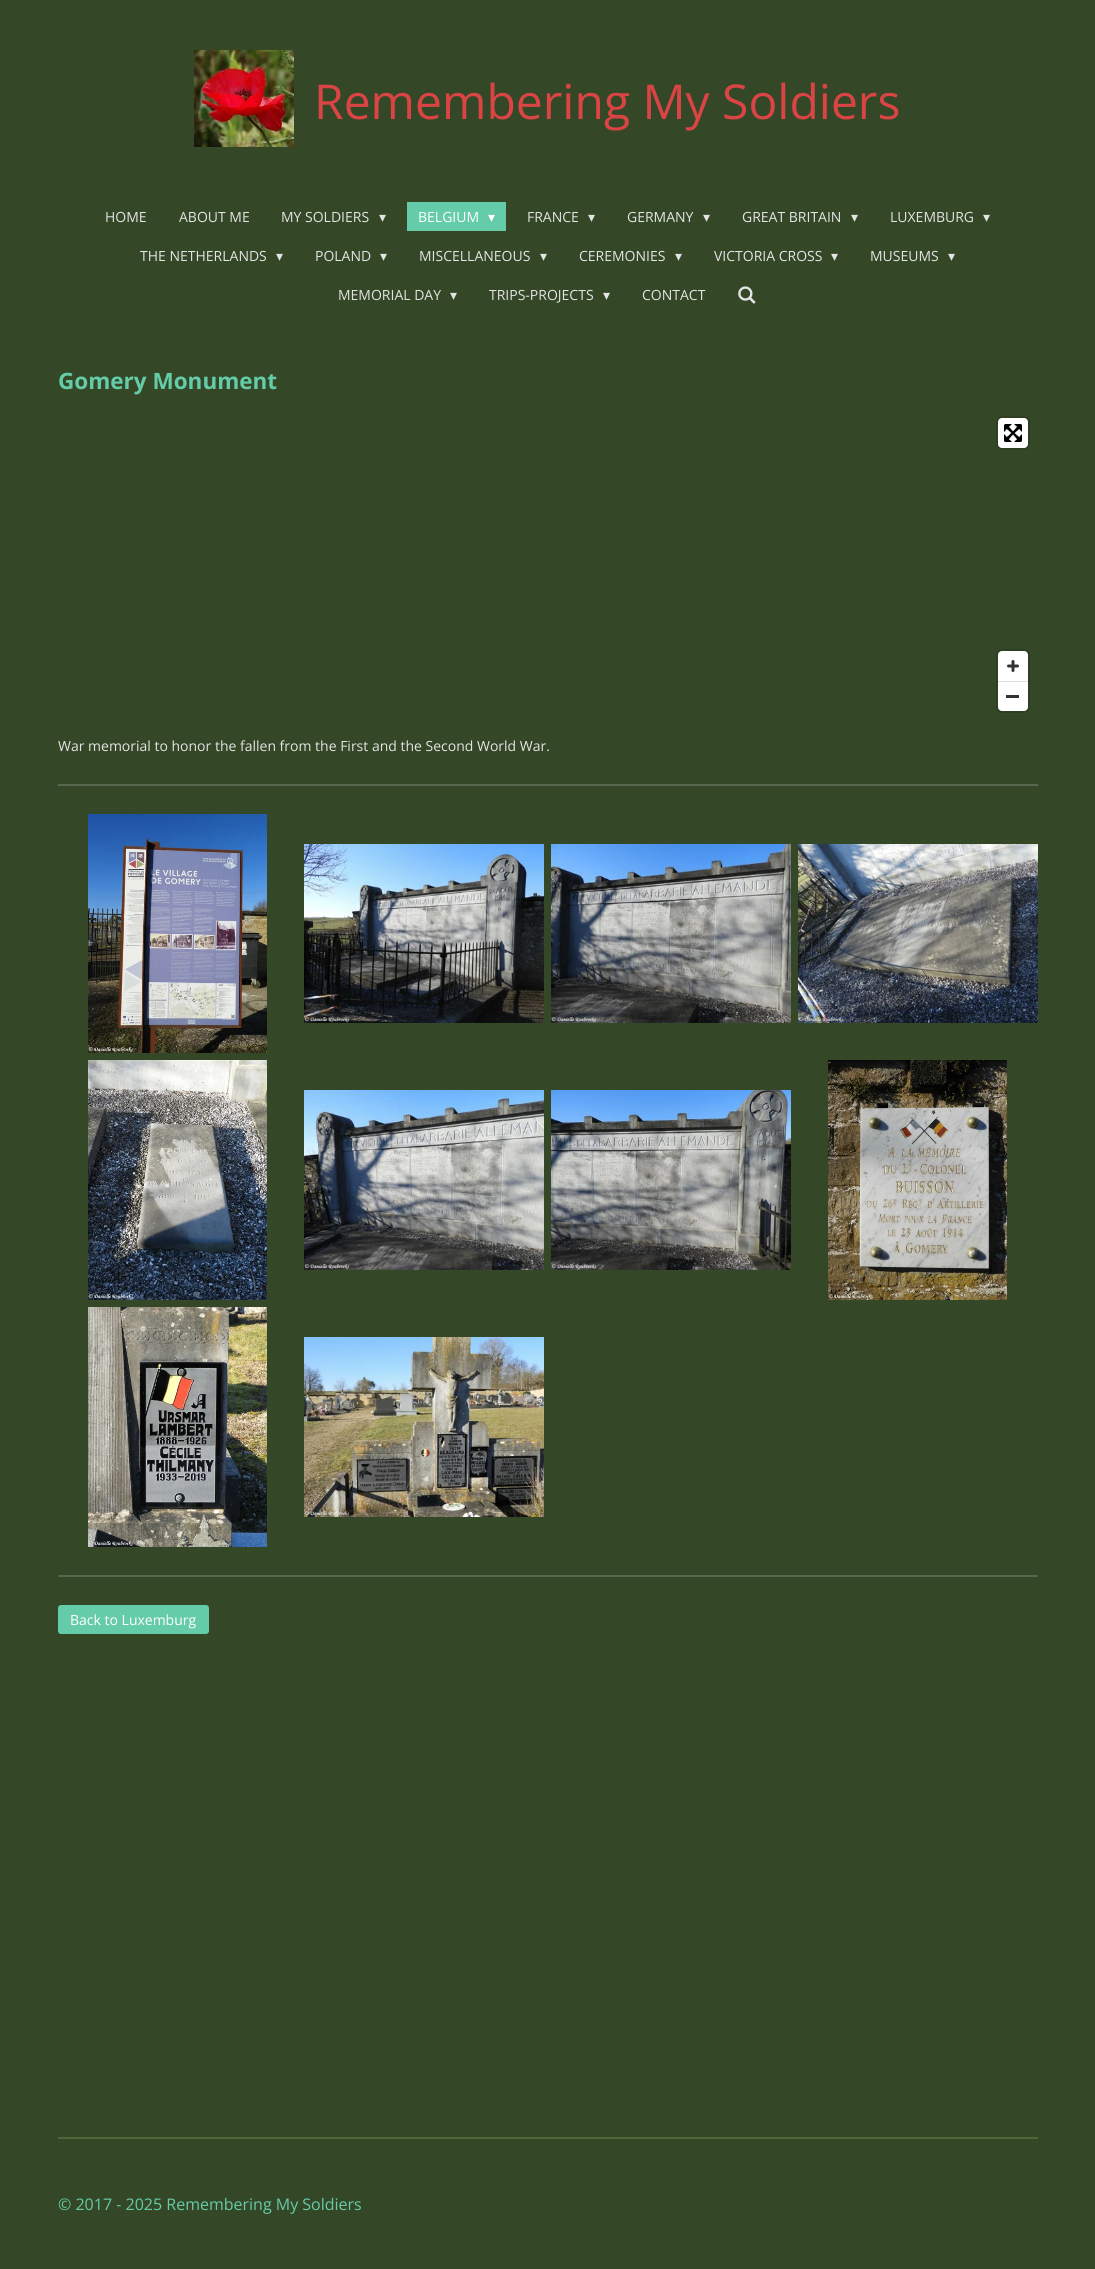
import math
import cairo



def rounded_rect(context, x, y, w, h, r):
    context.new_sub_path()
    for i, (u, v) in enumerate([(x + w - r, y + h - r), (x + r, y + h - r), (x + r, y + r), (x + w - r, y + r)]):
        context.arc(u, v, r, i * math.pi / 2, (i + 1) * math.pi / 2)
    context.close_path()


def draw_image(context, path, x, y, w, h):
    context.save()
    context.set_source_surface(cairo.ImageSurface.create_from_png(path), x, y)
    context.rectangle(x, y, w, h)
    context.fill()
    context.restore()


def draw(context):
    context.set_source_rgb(52 / 255, 71 / 255, 38 / 255)
    context.paint()
    draw_image(context, "images/1.png", 194, 50, 100, 97)
    context.set_source_rgb(101 / 255, 204 / 255, 169 / 255)
    context.rectangle(407, 202, 99, 29)
    context.fill()
    draw_image(context, "images/2.png", 738, 286, 18, 18)
    rounded_rect(context, 997, 417, 32, 32, 5)
    context.set_source_rgb(47 / 255, 64 / 255, 34 / 255)
    context.stroke()
    context.set_source_rgb(1, 1, 1)
    rounded_rect(context, 998, 418, 30, 30, 4)
    context.fill()
    draw_image(context, "images/3.png", 1004, 424, 18, 18)
    rounded_rect(context, 997, 650, 32, 62, 5)
    context.set_source_rgb(47 / 255, 64 / 255, 34 / 255)
    context.stroke()
    context.set_source_rgb(1, 1, 1)
    rounded_rect(context, 998, 651, 30, 60, 4)
    context.fill()
    draw_image(context, "images/4.png", 1007, 660, 12, 12)
    context.set_source_rgb(51 / 255, 51 / 255, 51 / 255)
    context.rectangle(1006, 695, 13, 3)
    context.fill()
    context.set_source_rgb(221 / 255, 221 / 255, 221 / 255)
    context.rectangle(998, 681, 30, 1)
    context.fill()
    context.set_source_rgb(87 / 255, 102 / 255, 76 / 255)
    context.rectangle(58, 784, 980, 2)
    context.fill()
    draw_image(context, "images/5.png", 88, 814, 179, 239)
    draw_image(context, "images/6.png", 304, 844, 240, 179)
    draw_image(context, "images/7.png", 551, 844, 240, 179)
    draw_image(context, "images/8.png", 798, 844, 240, 179)
    draw_image(context, "images/9.png", 88, 1060, 179, 240)
    draw_image(context, "images/10.png", 304, 1090, 240, 180)
    draw_image(context, "images/11.png", 551, 1090, 240, 180)
    draw_image(context, "images/12.png", 828, 1060, 179, 240)
    draw_image(context, "images/13.png", 88, 1307, 179, 240)
    draw_image(context, "images/14.png", 304, 1337, 240, 180)
    context.rectangle(58, 1575, 980, 2)
    context.fill()
    context.set_source_rgb(101 / 255, 204 / 255, 169 / 255)
    rounded_rect(context, 58, 1605, 151, 29, 3)
    context.fill()
    context.set_source_rgb(76 / 255, 104 / 255, 56 / 255)
    context.rectangle(58, 2137, 980, 2)
    context.fill()
    context.select_font_face("Open Sans")
    context.set_font_size(48)
    context.set_source_rgb(218 / 255, 68 / 255, 68 / 255)
    context.move_to(314, 119)
    context.show_text("Remembering My Soldiers")
    context.set_font_size(14)
    context.set_source_rgb(228 / 255, 228 / 255, 228 / 255)
    context.move_to(105, 222)
    context.show_text("HOME")
    context.move_to(179, 222)
    context.show_text("ABOUT ME")
    context.move_to(281, 222)
    context.show_text("MY SOLDIERS")
    context.select_font_face("DejaVu Sans")
    context.move_to(379, 222)
    context.show_text("▾")
    context.select_font_face("Open Sans")
    context.set_source_rgb(1, 1, 1)
    context.move_to(418, 222)
    context.show_text("BELGIUM")
    context.select_font_face("DejaVu Sans")
    context.move_to(488, 222)
    context.show_text("▾")
    context.select_font_face("Open Sans")
    context.set_source_rgb(228 / 255, 228 / 255, 228 / 255)
    context.move_to(527, 222)
    context.show_text("FRANCE")
    context.select_font_face("DejaVu Sans")
    context.move_to(588, 222)
    context.show_text("▾")
    context.select_font_face("Open Sans")
    context.move_to(627, 222)
    context.show_text("GERMANY")
    context.select_font_face("DejaVu Sans")
    context.move_to(703, 222)
    context.show_text("▾")
    context.select_font_face("Open Sans")
    context.move_to(742, 222)
    context.show_text("GREAT BRITAIN")
    context.select_font_face("DejaVu Sans")
    context.move_to(851, 222)
    context.show_text("▾")
    context.select_font_face("Open Sans")
    context.move_to(890, 222)
    context.show_text("LUXEMBURG")
    context.select_font_face("DejaVu Sans")
    context.move_to(983, 222)
    context.show_text("▾")
    context.select_font_face("Open Sans")
    context.move_to(140, 261)
    context.show_text("THE NETHERLANDS")
    context.select_font_face("DejaVu Sans")
    context.move_to(276, 261)
    context.show_text("▾")
    context.select_font_face("Open Sans")
    context.move_to(315, 261)
    context.show_text("POLAND")
    context.select_font_face("DejaVu Sans")
    context.move_to(380, 261)
    context.show_text("▾")
    context.select_font_face("Open Sans")
    context.move_to(419, 261)
    context.show_text("MISCELLANEOUS")
    context.select_font_face("DejaVu Sans")
    context.move_to(540, 261)
    context.show_text("▾")
    context.select_font_face("Open Sans")
    context.move_to(579, 261)
    context.show_text("CEREMONIES")
    context.select_font_face("DejaVu Sans")
    context.move_to(675, 261)
    context.show_text("▾")
    context.select_font_face("Open Sans")
    context.move_to(714, 261)
    context.show_text("VICTORIA CROSS")
    context.select_font_face("DejaVu Sans")
    context.move_to(831, 261)
    context.show_text("▾")
    context.select_font_face("Open Sans")
    context.move_to(870, 261)
    context.show_text("MUSEUMS")
    context.select_font_face("DejaVu Sans")
    context.move_to(948, 261)
    context.show_text("▾")
    context.select_font_face("Open Sans")
    context.move_to(338, 300)
    context.show_text("MEMORIAL DAY")
    context.select_font_face("DejaVu Sans")
    context.move_to(450, 300)
    context.show_text("▾")
    context.select_font_face("Open Sans")
    context.move_to(489, 300)
    context.show_text("TRIPS-PROJECTS")
    context.select_font_face("DejaVu Sans")
    context.move_to(603, 300)
    context.show_text("▾")
    context.select_font_face("Open Sans")
    context.move_to(642, 300)
    context.show_text("CONTACT")
    context.select_font_face("Open Sans", cairo.FontSlant.NORMAL, cairo.FontWeight.BOLD)
    context.set_font_size(22.5)
    context.set_source_rgb(101 / 255, 204 / 255, 169 / 255)
    context.move_to(58, 389)
    context.show_text("Gomery Monument")
    context.select_font_face("Open Sans")
    context.set_font_size(14)
    context.set_source_rgb(228 / 255, 228 / 255, 228 / 255)
    context.move_to(58, 751)
    context.show_text("War memorial to honor the fallen from the First and the Second World War.")
    context.set_source_rgb(1, 1, 1)
    context.move_to(70, 1625)
    context.show_text("Back to Luxemburg")
    context.set_font_size(16)
    context.set_source_rgb(101 / 255, 204 / 255, 169 / 255)
    context.move_to(58, 2210)
    context.show_text("© 2017 - 2025 Remembering My Soldiers")


surface = cairo.ImageSurface(cairo.Format.RGB24, 1095, 2269)
context = cairo.Context(surface)
options = cairo.FontOptions()
options.set_hint_metrics(cairo.HintMetrics.OFF)
options.set_hint_style(cairo.HintStyle.NONE)
context.set_font_options(options)
context.set_miter_limit(4)
draw(context)
surface.write_to_png("out.png")
